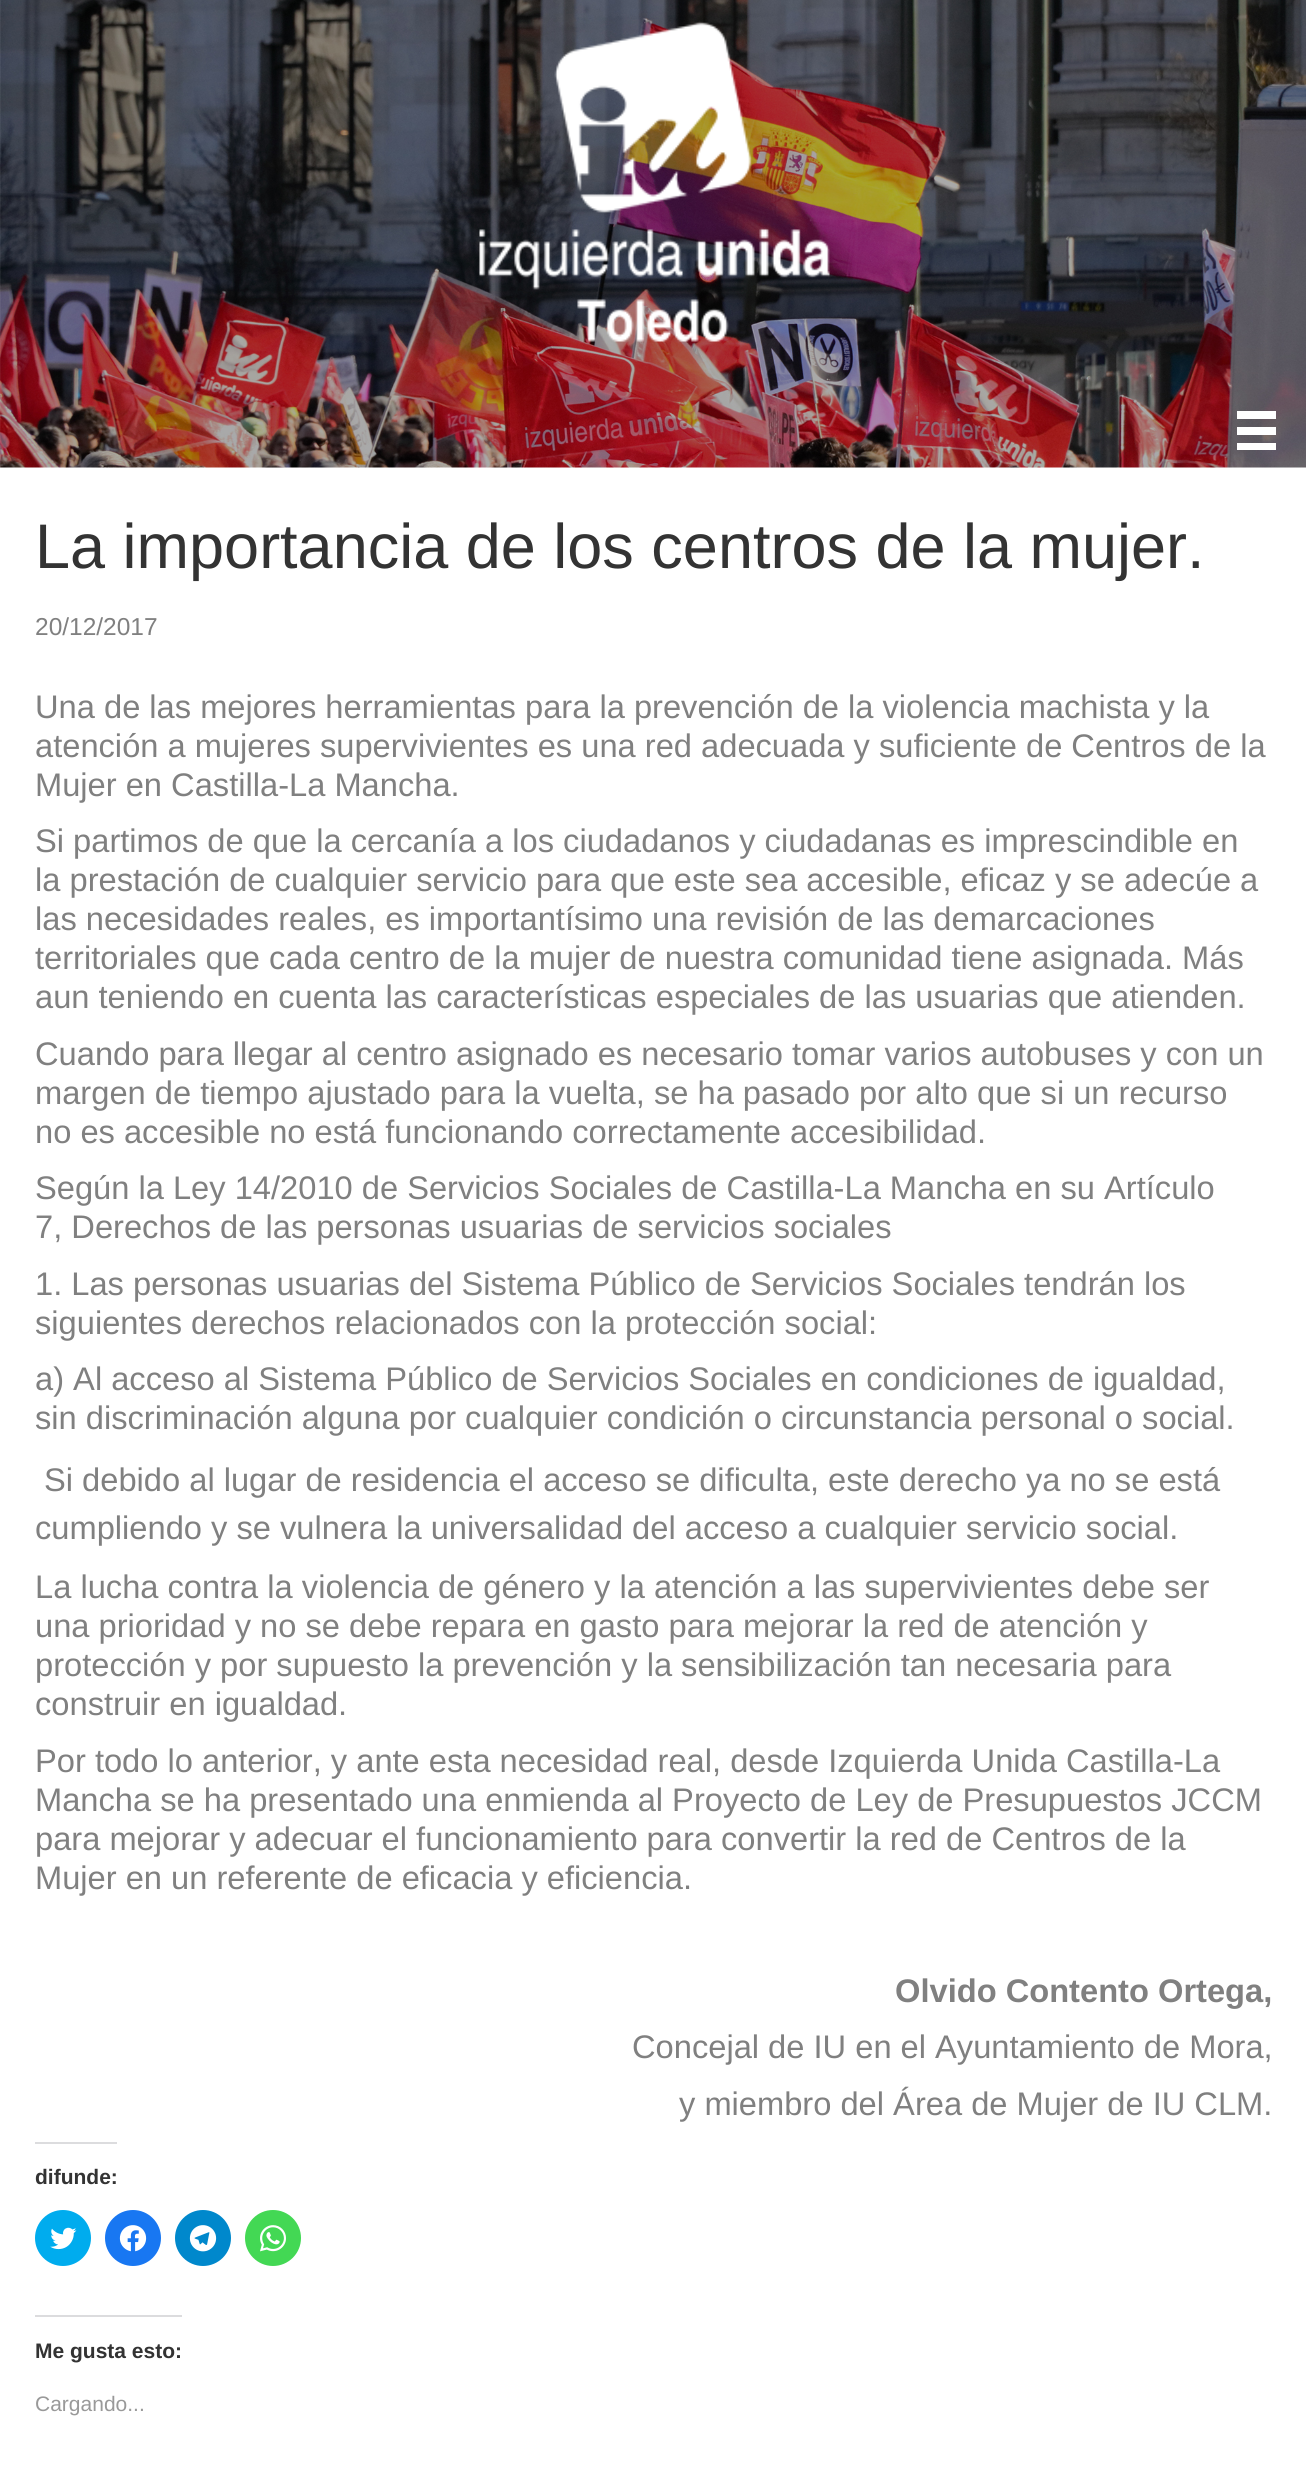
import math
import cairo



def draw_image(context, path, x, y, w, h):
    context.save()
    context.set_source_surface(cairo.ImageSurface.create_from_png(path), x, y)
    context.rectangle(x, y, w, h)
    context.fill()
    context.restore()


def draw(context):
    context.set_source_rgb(1, 1, 1)
    context.paint()
    draw_image(context, "images/1.png", 0, 0, 1306, 468)
    draw_image(context, "images/2.png", 479, 22, 351, 320)
    context.set_source_rgb(1, 1, 1)
    context.rectangle(1237, 411, 39, 8)
    context.fill()
    context.rectangle(1237, 427, 39, 8)
    context.fill()
    context.rectangle(1237, 443, 39, 7)
    context.fill()
    context.set_source_rgb(220 / 255, 220 / 255, 222 / 255)
    context.rectangle(35, 2142, 82, 2)
    context.fill()
    context.set_source_rgb(0, 172 / 255, 238 / 255)
    context.arc(63, 2238, 28, 0, 2 * math.pi)
    context.fill()
    draw_image(context, "images/3.png", 50, 2227, 27, 23)
    context.set_source_rgb(24 / 255, 119 / 255, 242 / 255)
    context.arc(133, 2238, 28, 0, 2 * math.pi)
    context.fill()
    draw_image(context, "images/4.png", 119, 2225, 28, 27)
    context.set_source_rgb(0, 136 / 255, 204 / 255)
    context.arc(203, 2238, 28, 0, 2 * math.pi)
    context.fill()
    draw_image(context, "images/5.png", 189, 2225, 28, 27)
    context.set_source_rgb(67 / 255, 216 / 255, 84 / 255)
    context.arc(273, 2238, 28, 0, 2 * math.pi)
    context.fill()
    draw_image(context, "images/6.png", 260, 2225, 26, 27)
    context.set_source_rgb(220 / 255, 220 / 255, 222 / 255)
    context.rectangle(35, 2315, 147, 2)
    context.fill()
    context.select_font_face("Liberation Sans")
    context.set_font_size(63)
    context.set_source_rgb(51 / 255, 51 / 255, 51 / 255)
    context.move_to(35, 568)
    context.show_text("La importancia de los centros de la mujer.")
    context.set_font_size(24.5)
    context.set_source_rgb(128 / 255, 128 / 255, 128 / 255)
    context.move_to(35, 635)
    context.show_text("20/12/2017")
    context.set_font_size(32.65)
    context.move_to(35, 718)
    context.show_text("Una de las mejores herramientas para la prevención de la violencia machista y la")
    context.move_to(35, 757)
    context.show_text("atención a mujeres supervivientes es una red adecuada y suficiente de Centros de la")
    context.move_to(35, 796)
    context.show_text("Mujer en Castilla-La Mancha.")
    context.move_to(35, 852)
    context.show_text("Si partimos de que la cercanía a los ciudadanos y ciudadanas es imprescindible en")
    context.move_to(35, 891)
    context.show_text("la prestación de cualquier servicio para que este sea accesible, eficaz y se adecúe a")
    context.move_to(35, 930)
    context.show_text("las necesidades reales, es importantísimo una revisión de las demarcaciones")
    context.move_to(35, 969)
    context.show_text("territoriales que cada centro de la mujer de nuestra comunidad tiene asignada. Más")
    context.move_to(35, 1008)
    context.show_text("aun teniendo en cuenta las características especiales de las usuarias que atienden.")
    context.move_to(35, 1065)
    context.show_text("Cuando para llegar al centro asignado es necesario tomar varios autobuses y con un")
    context.move_to(35, 1104)
    context.show_text("margen de tiempo ajustado para la vuelta, se ha pasado por alto que si un recurso")
    context.move_to(35, 1143)
    context.show_text("no es accesible no está funcionando correctamente accesibilidad.")
    context.move_to(35, 1199)
    context.show_text("Según la Ley 14/2010 de Servicios Sociales de Castilla-La Mancha en su Artículo")
    context.move_to(35, 1238)
    context.show_text("7, Derechos de las personas usuarias de servicios sociales")
    context.move_to(35, 1295)
    context.show_text("1. Las personas usuarias del Sistema Público de Servicios Sociales tendrán los")
    context.move_to(35, 1334)
    context.show_text("siguientes derechos relacionados con la protección social:")
    context.move_to(35, 1390)
    context.show_text("a) Al acceso al Sistema Público de Servicios Sociales en condiciones de igualdad,")
    context.move_to(35, 1429)
    context.show_text("sin discriminación alguna por cualquier condición o circunstancia personal o social.")
    context.move_to(44, 1491)
    context.show_text("Si debido al lugar de residencia el acceso se dificulta, este derecho ya no se está")
    context.move_to(35, 1539)
    context.show_text("cumpliendo y se vulnera la universalidad del acceso a cualquier servicio social.")
    context.move_to(35, 1598)
    context.show_text("La lucha contra la violencia de género y la atención a las supervivientes debe ser")
    context.move_to(35, 1637)
    context.show_text("una prioridad y no se debe repara en gasto para mejorar la red de atención y")
    context.move_to(35, 1676)
    context.show_text("protección y por supuesto la prevención y la sensibilización tan necesaria para")
    context.move_to(35, 1715)
    context.show_text("construir en igualdad.")
    context.move_to(35, 1772)
    context.show_text("Por todo lo anterior, y ante esta necesidad real, desde Izquierda Unida Castilla-La")
    context.move_to(35, 1811)
    context.show_text("Mancha se ha presentado una enmienda al Proyecto de Ley de Presupuestos JCCM")
    context.move_to(35, 1850)
    context.show_text("para mejorar y adecuar el funcionamiento para convertir la red de Centros de la")
    context.move_to(35, 1889)
    context.show_text("Mujer en un referente de eficacia y eficiencia.")
    context.select_font_face("Liberation Sans", cairo.FontSlant.NORMAL, cairo.FontWeight.BOLD)
    context.move_to(895, 2002)
    context.show_text("Olvido Contento Ortega,")
    context.select_font_face("Liberation Sans")
    context.move_to(632, 2058)
    context.show_text("Concejal de IU en el Ayuntamiento de Mora,")
    context.move_to(679, 2115)
    context.show_text("y miembro del Área de Mujer de IU CLM.")
    context.select_font_face("Liberation Sans", cairo.FontSlant.NORMAL, cairo.FontWeight.BOLD)
    context.set_font_size(21)
    context.set_source_rgb(51 / 255, 51 / 255, 51 / 255)
    context.move_to(35, 2184)
    context.show_text("difunde:")
    context.move_to(35, 2358)
    context.show_text("Me gusta esto:")
    context.select_font_face("Liberation Sans")
    context.set_source_rgb(153 / 255, 153 / 255, 153 / 255)
    context.move_to(35, 2411)
    context.show_text("Cargando...")


surface = cairo.ImageSurface(cairo.Format.RGB24, 1306, 2488)
context = cairo.Context(surface)
options = cairo.FontOptions()
options.set_hint_metrics(cairo.HintMetrics.OFF)
options.set_hint_style(cairo.HintStyle.NONE)
context.set_font_options(options)
context.set_miter_limit(4)
draw(context)
surface.write_to_png("out.png")
